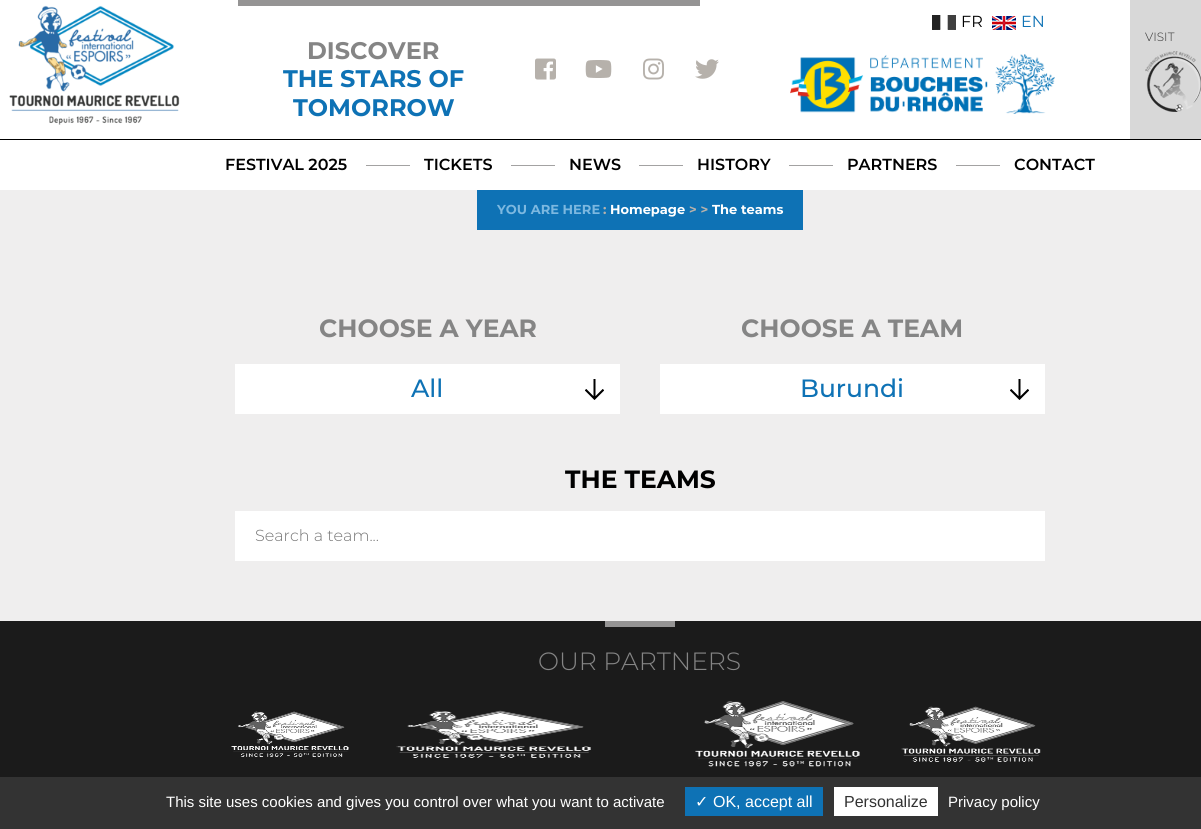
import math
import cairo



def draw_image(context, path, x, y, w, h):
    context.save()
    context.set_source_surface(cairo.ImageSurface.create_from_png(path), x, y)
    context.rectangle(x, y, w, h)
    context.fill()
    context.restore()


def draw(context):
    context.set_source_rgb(239 / 255, 238 / 255, 238 / 255)
    context.paint()
    context.set_source_rgb(1, 1, 1)
    context.rectangle(0, 0, 1201, 190)
    context.fill()
    context.set_source_rgb(0, 0, 0)
    context.rectangle(0, 139, 1201, 1)
    context.fill()
    context.set_source_rgb(149 / 255, 148 / 255, 148 / 255)
    context.rectangle(238, 0, 462, 6)
    context.fill()
    draw_image(context, "images/1.png", 9, 5, 171, 120)
    draw_image(context, "images/2.png", 932, 15, 24, 15)
    draw_image(context, "images/3.png", 992, 16, 24, 14)
    draw_image(context, "images/4.png", 790, 54, 265, 60)
    context.set_source_rgb(216 / 255, 216 / 255, 216 / 255)
    context.rectangle(1130, 0, 71, 139)
    context.fill()
    draw_image(context, "images/5.png", 1145, 51, 56, 61)
    draw_image(context, "images/6.png", 535, 58, 21, 22)
    draw_image(context, "images/7.png", 585, 60, 27, 18)
    draw_image(context, "images/8.png", 643, 58, 21, 22)
    draw_image(context, "images/9.png", 695, 59, 24, 20)
    context.set_source_rgb(163 / 255, 162 / 255, 162 / 255)
    context.rectangle(366, 165, 44, 1)
    context.fill()
    context.rectangle(511, 165, 44, 1)
    context.fill()
    context.rectangle(639, 165, 44, 1)
    context.fill()
    context.rectangle(789, 165, 44, 1)
    context.fill()
    context.rectangle(956, 165, 44, 1)
    context.fill()
    context.set_source_rgb(14 / 255, 114 / 255, 181 / 255)
    context.rectangle(477, 190, 326, 40)
    context.fill()
    context.set_source_rgb(1, 1, 1)
    context.rectangle(235, 364, 385, 50)
    context.fill()
    draw_image(context, "images/10.png", 585, 379, 19, 21)
    context.rectangle(660, 364, 385, 50)
    context.fill()
    draw_image(context, "images/10.png", 1010, 379, 19, 21)
    context.rectangle(235, 511, 810, 50)
    context.fill()
    context.set_source_rgb(27 / 255, 27 / 255, 27 / 255)
    context.rectangle(0, 621, 1201, 156)
    context.fill()
    context.set_source_rgb(149 / 255, 148 / 255, 148 / 255)
    context.rectangle(605, 621, 70, 6)
    context.fill()
    draw_image(context, "images/11.png", 231, 711, 118, 46)
    draw_image(context, "images/12.png", 396, 710, 195, 48)
    draw_image(context, "images/13.png", 695, 701, 165, 66)
    draw_image(context, "images/14.png", 901, 706, 140, 56)
    context.set_source_rgb(51 / 255, 51 / 255, 51 / 255)
    context.rectangle(0, 777, 1201, 52)
    context.fill()
    context.set_source_rgb(14 / 255, 114 / 255, 181 / 255)
    context.rectangle(685, 787, 138, 29)
    context.fill()
    context.set_source_rgb(1, 1, 1)
    context.rectangle(834, 787, 104, 29)
    context.fill()
    context.select_font_face("Montserrat")
    context.set_font_size(16)
    context.set_source_rgb(0, 0, 0)
    context.move_to(961, 27)
    context.show_text("FR")
    context.set_source_rgb(14 / 255, 114 / 255, 181 / 255)
    context.move_to(1021, 27)
    context.show_text("EN")
    context.select_font_face("Montserrat Light")
    context.set_font_size(12)
    context.set_source_rgb(50 / 255, 50 / 255, 50 / 255)
    context.move_to(1145, 41)
    context.show_text("VISIT")
    context.select_font_face("Montserrat", cairo.FontSlant.NORMAL, cairo.FontWeight.BOLD)
    context.set_font_size(24)
    context.set_source_rgb(133 / 255, 133 / 255, 133 / 255)
    context.move_to(307, 59)
    context.show_text("DISCOVER")
    context.set_source_rgb(14 / 255, 114 / 255, 181 / 255)
    context.move_to(283, 87)
    context.show_text("THE STARS OF")
    context.move_to(293, 116)
    context.show_text("TOMORROW")
    context.select_font_face("Montserrat SemiBold")
    context.set_font_size(16)
    context.set_source_rgb(0, 0, 0)
    context.move_to(225, 170)
    context.show_text("FESTIVAL 2025")
    context.move_to(424, 170)
    context.show_text("TICKETS")
    context.move_to(569, 170)
    context.show_text("NEWS")
    context.move_to(697, 170)
    context.show_text("HISTORY")
    context.move_to(847, 170)
    context.show_text("PARTNERS")
    context.move_to(1014, 170)
    context.show_text("CONTACT")
    context.select_font_face("Montserrat", cairo.FontSlant.NORMAL, cairo.FontWeight.BOLD)
    context.set_font_size(13)
    context.set_source_rgb(124 / 255, 184 / 255, 224 / 255)
    context.move_to(497, 214)
    context.show_text("YOU ARE HERE")
    context.set_source_rgb(182 / 255, 177 / 255, 171 / 255)
    context.move_to(603, 214)
    context.show_text(":")
    context.set_source_rgb(1, 1, 1)
    context.move_to(610, 214)
    context.show_text("Homepage")
    context.set_source_rgb(182 / 255, 177 / 255, 171 / 255)
    context.move_to(689, 214)
    context.show_text("> >")
    context.set_source_rgb(1, 1, 1)
    context.move_to(712, 214)
    context.show_text("The teams")
    context.set_font_size(25)
    context.set_source_rgb(133 / 255, 133 / 255, 133 / 255)
    context.move_to(319, 337)
    context.show_text("CHOOSE A YEAR")
    context.select_font_face("Montserrat Medium")
    context.set_source_rgb(14 / 255, 114 / 255, 181 / 255)
    context.move_to(411, 397)
    context.show_text("All")
    context.select_font_face("Montserrat", cairo.FontSlant.NORMAL, cairo.FontWeight.BOLD)
    context.set_source_rgb(133 / 255, 133 / 255, 133 / 255)
    context.move_to(741, 337)
    context.show_text("CHOOSE A TEAM")
    context.select_font_face("Montserrat Medium")
    context.set_source_rgb(14 / 255, 114 / 255, 181 / 255)
    context.move_to(800, 397)
    context.show_text("Burundi")
    context.select_font_face("Montserrat", cairo.FontSlant.NORMAL, cairo.FontWeight.BOLD)
    context.set_source_rgb(0, 0, 0)
    context.move_to(565, 488)
    context.show_text("THE TEAMS")
    context.select_font_face("Montserrat Light")
    context.set_font_size(16)
    context.set_source_rgb(117 / 255, 117 / 255, 117 / 255)
    context.move_to(255, 541)
    context.show_text("Search a team...")
    context.set_font_size(25)
    context.set_source_rgb(133 / 255, 133 / 255, 133 / 255)
    context.move_to(538, 670)
    context.show_text("OUR PARTNERS")
    context.select_font_face("Liberation Sans")
    context.set_font_size(15)
    context.set_source_rgb(1, 1, 1)
    context.move_to(166, 807)
    context.show_text("This site uses cookies and gives you control over what you want to activate")
    context.select_font_face("DejaVu Sans")
    context.set_font_size(16)
    context.move_to(695, 807)
    context.show_text("✓")
    context.select_font_face("Liberation Sans")
    context.move_to(713, 807)
    context.show_text("OK, accept all")
    context.set_source_rgb(50 / 255, 50 / 255, 50 / 255)
    context.move_to(844, 807)
    context.show_text("Personalize")
    context.set_font_size(15)
    context.set_source_rgb(1, 1, 1)
    context.move_to(948, 807)
    context.show_text("Privacy policy")


surface = cairo.ImageSurface(cairo.Format.RGB24, 1201, 829)
context = cairo.Context(surface)
options = cairo.FontOptions()
options.set_hint_metrics(cairo.HintMetrics.OFF)
options.set_hint_style(cairo.HintStyle.NONE)
context.set_font_options(options)
context.set_miter_limit(4)
draw(context)
surface.write_to_png("out.png")
